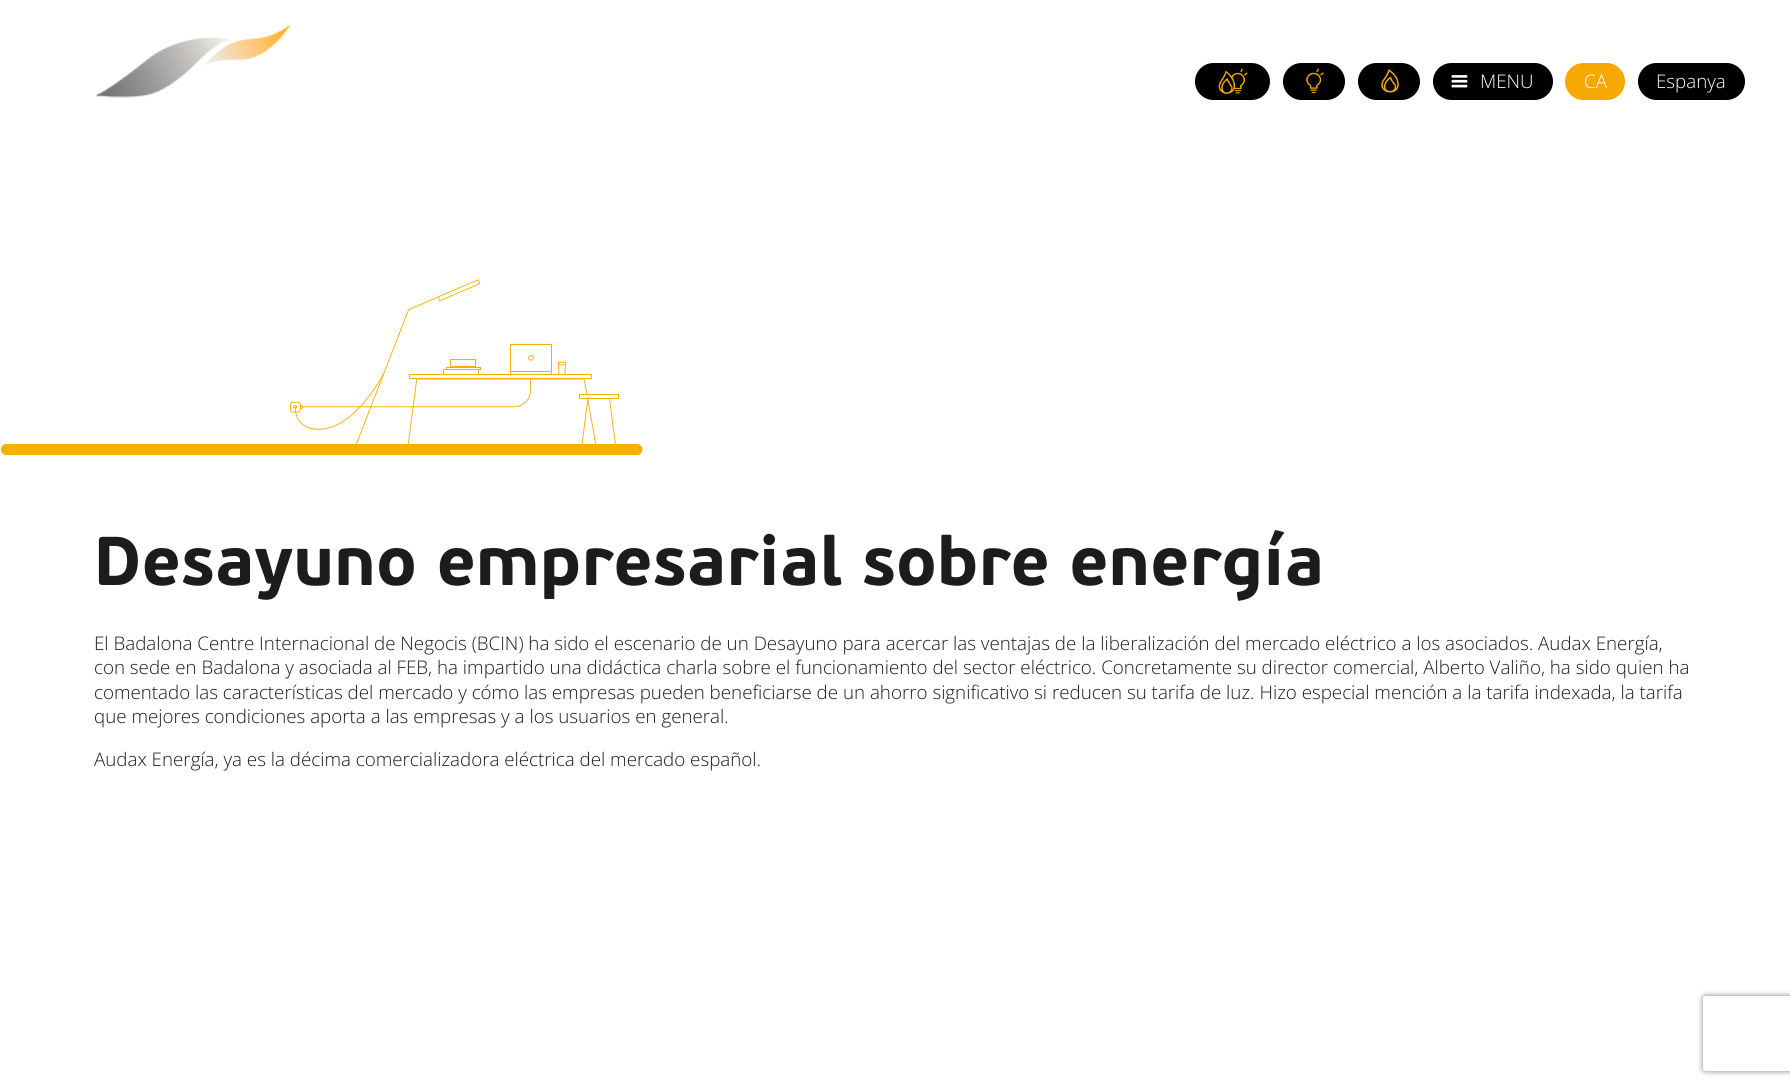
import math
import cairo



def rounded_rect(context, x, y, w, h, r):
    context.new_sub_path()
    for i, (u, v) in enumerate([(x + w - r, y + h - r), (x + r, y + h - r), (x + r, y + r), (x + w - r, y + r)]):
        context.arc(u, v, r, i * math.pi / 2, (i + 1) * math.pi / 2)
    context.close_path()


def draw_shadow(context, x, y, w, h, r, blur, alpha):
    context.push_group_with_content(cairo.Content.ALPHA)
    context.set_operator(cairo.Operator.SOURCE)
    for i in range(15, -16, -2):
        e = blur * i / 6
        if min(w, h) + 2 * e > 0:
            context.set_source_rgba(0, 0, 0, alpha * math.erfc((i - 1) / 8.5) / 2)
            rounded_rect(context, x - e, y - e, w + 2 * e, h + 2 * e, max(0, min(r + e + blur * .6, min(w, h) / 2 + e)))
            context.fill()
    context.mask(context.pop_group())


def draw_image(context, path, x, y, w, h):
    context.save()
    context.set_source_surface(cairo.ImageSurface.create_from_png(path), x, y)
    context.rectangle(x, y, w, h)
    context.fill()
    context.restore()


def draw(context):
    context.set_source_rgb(1, 1, 1)
    context.paint()
    draw_image(context, "images/1.png", 96, 25, 196, 73)
    context.set_source_rgb(0, 0, 0)
    rounded_rect(context, 1195, 63, 75, 37, 18.5)
    context.fill()
    draw_image(context, "images/2.png", 1218, 68, 30, 26)
    rounded_rect(context, 1283, 63, 62, 37, 18.5)
    context.fill()
    draw_image(context, "images/3.png", 1306, 68, 18, 25)
    rounded_rect(context, 1358, 63, 62, 37, 18.5)
    context.fill()
    draw_image(context, "images/4.png", 1381, 69, 18, 24)
    rounded_rect(context, 1433, 63, 120, 37, 18.5)
    context.fill()
    draw_image(context, "images/5.png", 1451, 75, 17, 13)
    context.set_source_rgb(244 / 255, 168 / 255, 0)
    rounded_rect(context, 1565, 63, 60, 37, 18.5)
    context.fill()
    context.set_source_rgb(0, 0, 0)
    rounded_rect(context, 1638, 63, 107, 37, 18.5)
    context.fill()
    draw_image(context, "images/6.png", 0, 279, 643, 177)
    draw_image(context, "images/7.png", 98, 530, 1222, 71)
    context.save()
    context.set_fill_rule(cairo.FillRule.EVEN_ODD)
    context.new_path()
    context.move_to(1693, 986)
    context.line_to(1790, 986)
    context.line_to(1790, 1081)
    context.line_to(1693, 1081)
    context.close_path()
    context.move_to(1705.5, 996)
    context.line_to(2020.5, 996)
    context.curve_to(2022, 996, 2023, 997, 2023, 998.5)
    context.line_to(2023, 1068.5)
    context.curve_to(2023, 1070, 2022, 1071, 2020.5, 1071)
    context.line_to(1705.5, 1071)
    context.curve_to(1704, 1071, 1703, 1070, 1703, 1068.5)
    context.line_to(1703, 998.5)
    context.curve_to(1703, 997, 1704, 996, 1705.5, 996)
    context.close_path()
    context.clip()
    context.set_source_rgb(128 / 255, 128 / 255, 128 / 255)
    draw_shadow(context, 1703, 996, 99, 75, 2.5, 3, 1)
    context.restore()
    context.select_font_face("Open Sans Light")
    context.set_font_size(18.75)
    context.set_source_rgb(1, 1, 1)
    context.move_to(1480, 88)
    context.show_text("MENU")
    context.move_to(1584, 88)
    context.show_text("CA")
    context.move_to(1656, 88)
    context.show_text("Espanya")
    context.set_source_rgb(28 / 255, 28 / 255, 28 / 255)
    context.move_to(94, 650)
    context.show_text("El Badalona Centre Internacional de Negocis (BCIN) ha sido el escenario de un Desayuno para acercar las ventajas de la liberalización del mercado eléctrico a los asociados. Audax Energía,")
    context.move_to(94, 674)
    context.show_text("con sede en Badalona y asociada al FEB, ha impartido una didáctica charla sobre el funcionamiento del sector eléctrico. Concretamente su director comercial, Alberto Valiño, ha sido quien ha")
    context.move_to(94, 699)
    context.show_text("comentado las características del mercado y cómo las empresas pueden beneficiarse de un ahorro significativo si reducen su tarifa de luz. Hizo especial mención a la tarifa indexada, la tarifa")
    context.move_to(94, 723)
    context.show_text("que mejores condiciones aporta a las empresas y a los usuarios en general.")
    context.move_to(94, 766)
    context.show_text("Audax Energía, ya es la décima comercializadora eléctrica del mercado español.")


surface = cairo.ImageSurface(cairo.Format.RGB24, 1790, 1088)
context = cairo.Context(surface)
options = cairo.FontOptions()
options.set_hint_metrics(cairo.HintMetrics.OFF)
options.set_hint_style(cairo.HintStyle.NONE)
context.set_font_options(options)
context.set_miter_limit(4)
draw(context)
surface.write_to_png("out.png")
